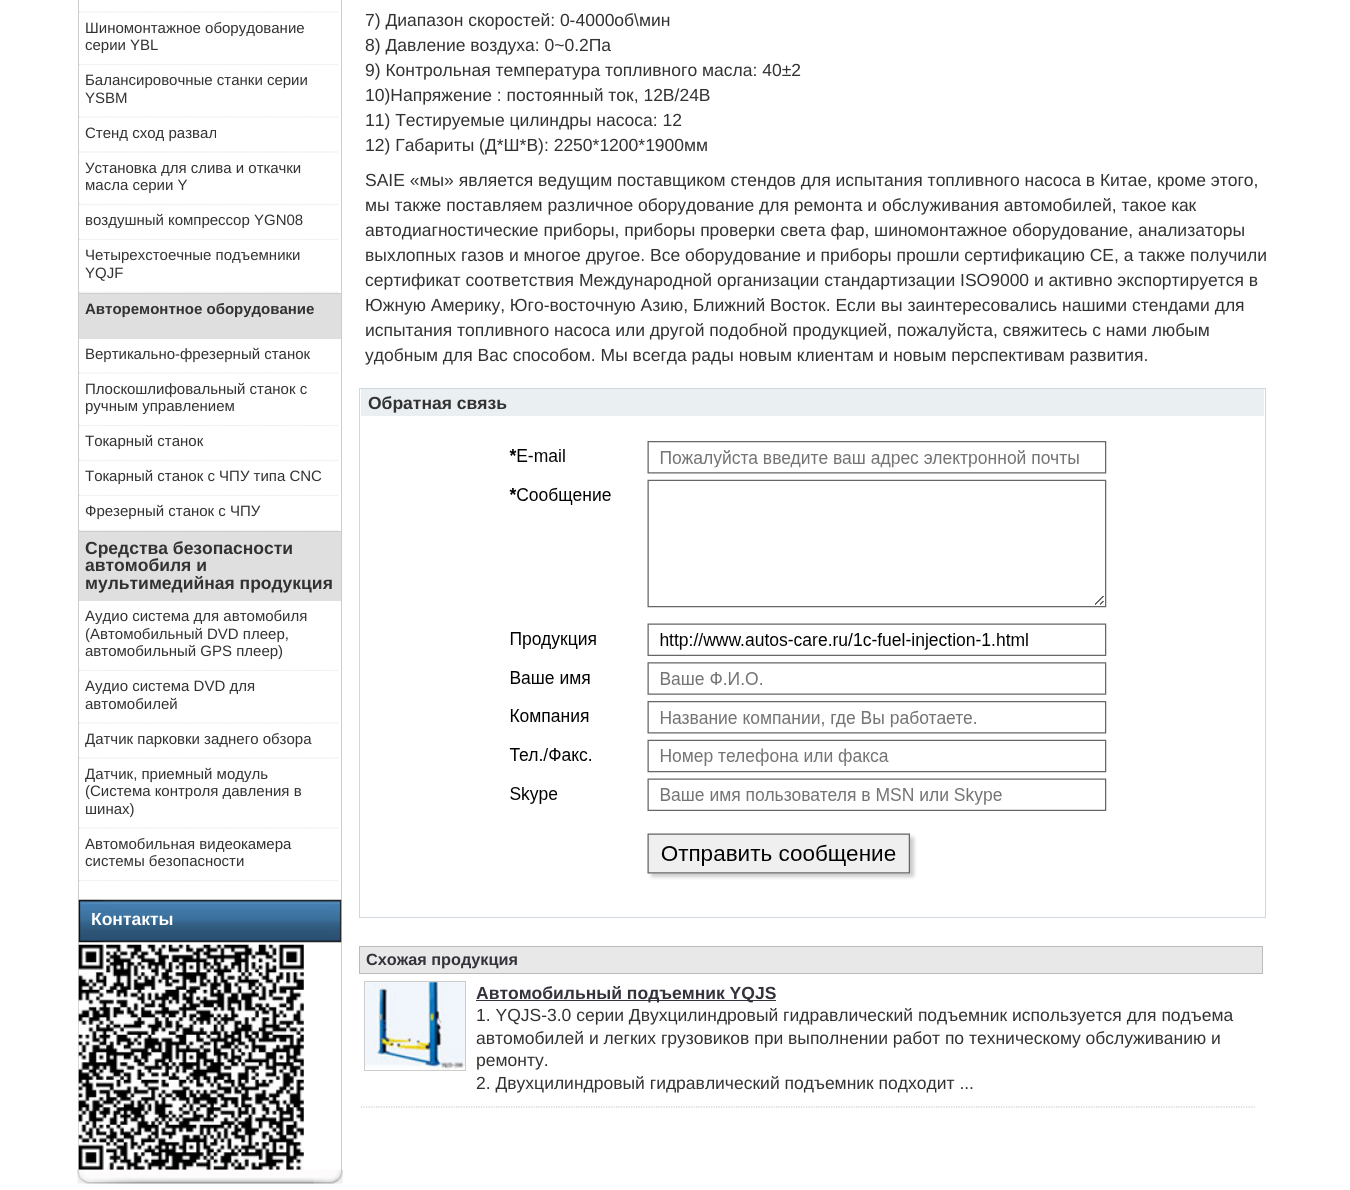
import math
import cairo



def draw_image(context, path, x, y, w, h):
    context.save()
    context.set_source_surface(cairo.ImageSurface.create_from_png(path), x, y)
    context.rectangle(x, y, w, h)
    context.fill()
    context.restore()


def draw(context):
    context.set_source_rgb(1, 1, 1)
    context.paint()
    context.set_source_rgb(204 / 255, 204 / 255, 204 / 255)
    context.rectangle(341, 0, 1, 1170)
    context.fill()
    context.rectangle(78, 0, 1, 1170)
    context.fill()
    context.new_path()
    context.move_to(79, 12)
    context.line_to(339, 12)
    context.set_source_rgb(230 / 255, 230 / 255, 230 / 255)
    context.set_line_width(1.2)
    context.set_dash([1.25, 1.25])
    context.stroke()
    context.new_path()
    context.move_to(79, 64.5)
    context.line_to(339, 64.5)
    context.stroke()
    context.new_path()
    context.move_to(79, 117)
    context.line_to(339, 117)
    context.stroke()
    context.new_path()
    context.move_to(79, 152)
    context.line_to(339, 152)
    context.stroke()
    context.new_path()
    context.move_to(79, 204.5)
    context.line_to(339, 204.5)
    context.stroke()
    context.new_path()
    context.move_to(79, 239.5)
    context.line_to(339, 239.5)
    context.stroke()
    context.new_path()
    context.move_to(79, 292)
    context.line_to(339, 292)
    context.stroke()
    context.set_source_rgb(223 / 255, 223 / 255, 223 / 255)
    context.rectangle(79, 294, 262, 45)
    context.fill()
    context.set_source_rgb(204 / 255, 204 / 255, 204 / 255)
    context.rectangle(79, 293, 262, 1)
    context.fill()
    context.new_path()
    context.move_to(79, 373)
    context.line_to(339, 373)
    context.set_source_rgb(230 / 255, 230 / 255, 230 / 255)
    context.stroke()
    context.new_path()
    context.move_to(79, 425.5)
    context.line_to(339, 425.5)
    context.stroke()
    context.new_path()
    context.move_to(79, 460.5)
    context.line_to(339, 460.5)
    context.stroke()
    context.new_path()
    context.move_to(79, 495.5)
    context.line_to(339, 495.5)
    context.stroke()
    context.new_path()
    context.move_to(79, 530.5)
    context.line_to(339, 530.5)
    context.stroke()
    context.set_source_rgb(223 / 255, 223 / 255, 223 / 255)
    context.rectangle(79, 532, 262, 69)
    context.fill()
    context.set_source_rgb(204 / 255, 204 / 255, 204 / 255)
    context.rectangle(79, 531, 262, 1)
    context.fill()
    context.new_path()
    context.move_to(79, 670.5)
    context.line_to(339, 670.5)
    context.set_source_rgb(230 / 255, 230 / 255, 230 / 255)
    context.stroke()
    context.new_path()
    context.move_to(79, 723)
    context.line_to(339, 723)
    context.stroke()
    context.new_path()
    context.move_to(79, 758)
    context.line_to(339, 758)
    context.stroke()
    context.new_path()
    context.move_to(79, 828)
    context.line_to(339, 828)
    context.stroke()
    context.new_path()
    context.move_to(79, 880.5)
    context.line_to(339, 880.5)
    context.stroke()
    draw_image(context, "images/1.png", 78, 899, 264, 44)
    draw_image(context, "images/2.png", 78, 944, 226, 226)
    draw_image(context, "images/3.png", 77, 1169, 266, 15)
    context.rectangle(359.5, 388.5, 906, 529)
    context.set_source_rgb(207 / 255, 216 / 255, 225 / 255)
    context.set_line_width(1)
    context.set_dash([])
    context.stroke()
    context.set_source_rgb(234 / 255, 239 / 255, 242 / 255)
    context.rectangle(361, 389, 903, 27)
    context.fill()
    draw_image(context, "images/4.png", 509, 441, 598, 439)
    context.set_source_rgb(232 / 255, 232 / 255, 232 / 255)
    context.rectangle(359.5, 946.5, 903, 27)
    context.fill_preserve()
    context.set_source_rgb(186 / 255, 187 / 255, 187 / 255)
    context.stroke()
    context.new_path()
    context.move_to(361, 1107)
    context.line_to(1256, 1107)
    context.set_source_rgb(204 / 255, 204 / 255, 204 / 255)
    context.set_line_width(1.2)
    context.set_dash([1.25, 1.25])
    context.stroke()
    context.rectangle(364.5, 981.5, 101, 89)
    context.set_line_width(1)
    context.set_dash([])
    context.stroke()
    draw_image(context, "images/5.png", 365, 982, 100, 88)
    context.set_source_rgb(52 / 255, 51 / 255, 59 / 255)
    context.rectangle(476, 1000, 300, 1)
    context.fill()
    context.select_font_face("Liberation Sans")
    context.set_font_size(15)
    context.set_source_rgb(50 / 255, 50 / 255, 50 / 255)
    context.move_to(85, 33)
    context.show_text("Шиномонтажное оборудование")
    context.move_to(85, 50)
    context.show_text("серии YBL")
    context.move_to(85, 85)
    context.show_text("Балансировочные станки серии")
    context.move_to(85, 103)
    context.show_text("YSBM")
    context.move_to(85, 138)
    context.show_text("Стенд сход развал")
    context.move_to(85, 173)
    context.show_text("Установка для слива и откачки")
    context.move_to(85, 190)
    context.show_text("масла серии Y")
    context.move_to(85, 225)
    context.show_text("воздушный компрессор YGN08")
    context.move_to(85, 260)
    context.show_text("Четырехстоечные подъемники")
    context.move_to(85, 278)
    context.show_text("YQJF")
    context.select_font_face("Liberation Sans", cairo.FontSlant.NORMAL, cairo.FontWeight.BOLD)
    context.move_to(85, 314)
    context.show_text("Авторемонтное оборудование")
    context.select_font_face("Liberation Sans")
    context.move_to(85, 359)
    context.show_text("Вертикально-фрезерный станок")
    context.move_to(85, 394)
    context.show_text("Плоскошлифовальный станок с")
    context.move_to(85, 411)
    context.show_text("ручным управлением")
    context.move_to(85, 446)
    context.show_text("Токарный станок")
    context.move_to(85, 481)
    context.show_text("Токарный станок с ЧПУ типа CNC")
    context.move_to(85, 516)
    context.show_text("Фрезерный станок с ЧПУ")
    context.select_font_face("Liberation Sans", cairo.FontSlant.NORMAL, cairo.FontWeight.BOLD)
    context.set_font_size(17.5)
    context.move_to(85, 554)
    context.show_text("Средства безопасности")
    context.move_to(85, 571)
    context.show_text("автомобиля и")
    context.move_to(85, 589)
    context.show_text("мультимедийная продукция")
    context.select_font_face("Liberation Sans")
    context.set_font_size(15)
    context.move_to(85, 621)
    context.show_text("Аудио система для автомобиля")
    context.move_to(85, 639)
    context.show_text("(Автомобильный DVD плеер,")
    context.move_to(85, 656)
    context.show_text("автомобильный GPS плеер)")
    context.move_to(85, 691)
    context.show_text("Аудио система DVD для")
    context.move_to(85, 709)
    context.show_text("автомобилей")
    context.move_to(85, 744)
    context.show_text("Датчик парковки заднего обзора")
    context.move_to(85, 779)
    context.show_text("Датчик, приемный модуль")
    context.move_to(85, 796)
    context.show_text("(Система контроля давления в")
    context.move_to(85, 814)
    context.show_text("шинах)")
    context.move_to(85, 849)
    context.show_text("Автомобильная видеокамера")
    context.move_to(85, 866)
    context.show_text("системы безопасности")
    context.select_font_face("Liberation Sans", cairo.FontSlant.NORMAL, cairo.FontWeight.BOLD)
    context.set_font_size(17.5)
    context.set_source_rgb(1, 1, 1)
    context.move_to(91, 925)
    context.show_text("Контакты")
    context.select_font_face("Liberation Sans")
    context.set_source_rgb(50 / 255, 50 / 255, 50 / 255)
    context.move_to(365, 26)
    context.show_text("7) Диапазон скоростей: 0-4000об\\мин")
    context.move_to(365, 51)
    context.show_text("8) Давление воздуха: 0~0.2Па")
    context.move_to(365, 76)
    context.show_text("9) Контрольная температура топливного масла: 40±2")
    context.move_to(365, 101)
    context.show_text("10)Напряжение : постоянный ток, 12В/24В")
    context.move_to(365, 126)
    context.show_text("11) Тестируемые цилиндры насоса: 12")
    context.move_to(365, 151)
    context.show_text("12) Габариты (Д*Ш*В): 2250*1200*1900мм")
    context.move_to(365, 186)
    context.show_text("SAIE «мы» является ведущим поставщиком стендов для испытания топливного насоса в Китае, кроме этого,")
    context.move_to(365, 211)
    context.show_text("мы также поставляем различное оборудование для ремонта и обслуживания автомобилей, такое как")
    context.move_to(365, 236)
    context.show_text("автодиагностические приборы, приборы проверки света фар, шиномонтажное оборудование, анализаторы")
    context.move_to(365, 261)
    context.show_text("выхлопных газов и многое другое. Все оборудование и приборы прошли сертификацию CE, а также получили")
    context.move_to(365, 286)
    context.show_text("сертификат соответствия Международной организации стандартизации ISO9000 и активно экспортируется в")
    context.move_to(365, 311)
    context.show_text("Южную Америку, Юго-восточную Азию, Ближний Восток. Если вы заинтересовались нашими стендами для")
    context.move_to(365, 336)
    context.show_text("испытания топливного насоса или другой подобной продукцией, пожалуйста, свяжитесь с нами любым")
    context.move_to(365, 361)
    context.show_text("удобным для Вас способом. Мы всегда рады новым клиентам и новым перспективам развития.")
    context.select_font_face("Liberation Sans", cairo.FontSlant.NORMAL, cairo.FontWeight.BOLD)
    context.move_to(368, 409)
    context.show_text("Обратная связь")
    context.set_font_size(16.25)
    context.set_source_rgb(52 / 255, 51 / 255, 59 / 255)
    context.move_to(366, 965)
    context.show_text("Схожая продукция")
    context.set_font_size(17.5)
    context.move_to(476, 999)
    context.show_text("Автомобильный подъемник YQJS")
    context.select_font_face("Liberation Sans")
    context.set_source_rgb(50 / 255, 50 / 255, 50 / 255)
    context.move_to(476, 1021)
    context.show_text("1. YQJS-3.0 серии Двухцилиндровый гидравлический подъемник используется для подъема")
    context.move_to(476, 1044)
    context.show_text("автомобилей и легких грузовиков при выполнении работ по техническому обслуживанию и")
    context.move_to(476, 1066)
    context.show_text("ремонту.")
    context.move_to(476, 1089)
    context.show_text("2. Двухцилиндровый гидравлический подъемник подходит ...")


surface = cairo.ImageSurface(cairo.Format.RGB24, 1350, 1190)
context = cairo.Context(surface)
options = cairo.FontOptions()
options.set_hint_metrics(cairo.HintMetrics.OFF)
options.set_hint_style(cairo.HintStyle.NONE)
context.set_font_options(options)
context.set_miter_limit(4)
draw(context)
surface.write_to_png("out.png")
